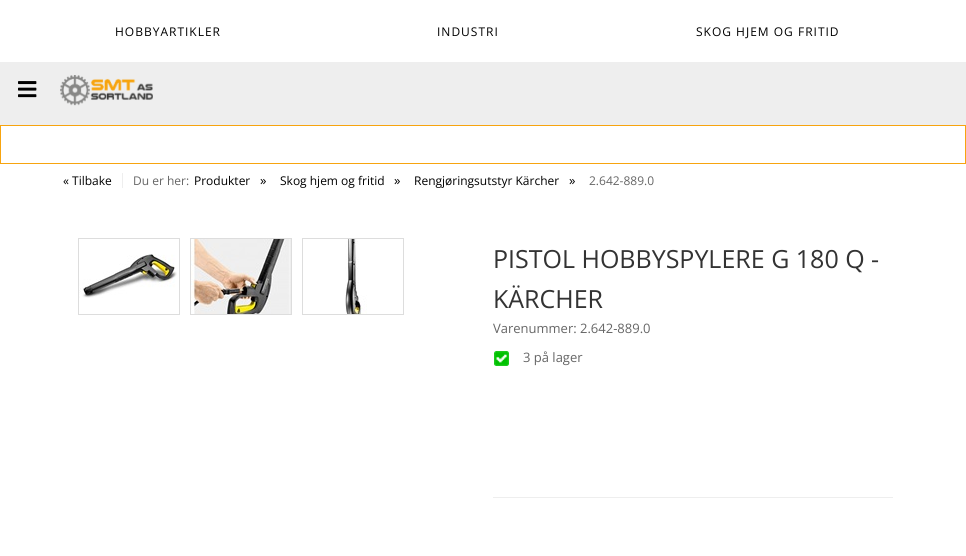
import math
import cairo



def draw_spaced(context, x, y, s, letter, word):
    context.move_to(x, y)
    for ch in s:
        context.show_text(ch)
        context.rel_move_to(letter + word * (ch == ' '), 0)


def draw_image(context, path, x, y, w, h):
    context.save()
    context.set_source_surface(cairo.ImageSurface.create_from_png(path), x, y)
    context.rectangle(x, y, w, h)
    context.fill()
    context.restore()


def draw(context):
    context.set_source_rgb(1, 1, 1)
    context.paint()
    context.set_source_rgb(238 / 255, 238 / 255, 238 / 255)
    context.rectangle(0, 62, 966, 63)
    context.fill()
    draw_image(context, "images/1.png", 18, 81, 19, 17)
    draw_image(context, "images/2.png", 60, 75, 93, 31)
    context.rectangle(0.5, 125.5, 965, 38)
    context.set_source_rgb(247 / 255, 164 / 255, 15 / 255)
    context.set_line_width(1)
    context.stroke()
    context.set_source_rgb(238 / 255, 238 / 255, 238 / 255)
    context.rectangle(122, 173, 1, 15)
    context.fill()
    context.rectangle(78.5, 238.5, 101, 76)
    context.set_source_rgb(221 / 255, 221 / 255, 221 / 255)
    context.stroke()
    context.rectangle(190.5, 238.5, 101, 76)
    context.stroke()
    context.rectangle(302.5, 238.5, 101, 76)
    context.stroke()
    draw_image(context, "images/3.png", 79, 254, 98, 44)
    draw_image(context, "images/4.png", 191, 239, 100, 75)
    draw_image(context, "images/5.png", 345, 239, 22, 75)
    draw_image(context, "images/6.png", 494, 351, 15, 15)
    context.set_source_rgb(238 / 255, 238 / 255, 238 / 255)
    context.rectangle(493, 497, 400, 1)
    context.fill()
    context.select_font_face("Open Sans")
    context.set_font_size(12)
    context.set_source_rgb(0, 0, 0)
    draw_spaced(context, 115, 36, "HOBBYARTIKLER", 1, 0)
    draw_spaced(context, 437, 36, "INDUSTRI", 1, 0)
    draw_spaced(context, 696, 36, "SKOG HJEM OG FRITID", 1, 0)
    context.move_to(63, 185)
    context.show_text("« Tilbake")
    context.set_source_rgb(102 / 255, 102 / 255, 102 / 255)
    context.move_to(133, 185)
    context.show_text("Du er her:")
    context.set_source_rgb(0, 0, 0)
    context.move_to(194, 185)
    context.show_text("Produkter")
    context.set_font_size(13)
    context.move_to(260, 185)
    context.show_text("»")
    context.set_font_size(12)
    context.move_to(280, 185)
    context.show_text("Skog hjem og fritid")
    context.set_font_size(13)
    context.move_to(394, 185)
    context.show_text("»")
    context.set_font_size(12)
    context.move_to(414, 185)
    context.show_text("Rengjøringsutstyr Kärcher")
    context.set_font_size(13)
    context.move_to(569, 185)
    context.show_text("»")
    context.set_font_size(12)
    context.set_source_rgb(102 / 255, 102 / 255, 102 / 255)
    context.move_to(589, 185)
    context.show_text("2.642-889.0")
    context.set_font_size(25)
    context.set_source_rgb(51 / 255, 51 / 255, 51 / 255)
    context.move_to(493, 268)
    context.show_text("PISTOL HOBBYSPYLERE G 180 Q -")
    context.move_to(493, 308)
    context.show_text("KÄRCHER")
    context.set_font_size(13)
    context.set_source_rgb(102 / 255, 102 / 255, 102 / 255)
    context.move_to(493, 333)
    context.show_text("Varenummer: 2.642-889.0")
    context.move_to(523, 362)
    context.show_text("3 på lager")


surface = cairo.ImageSurface(cairo.Format.RGB24, 966, 556)
context = cairo.Context(surface)
options = cairo.FontOptions()
options.set_hint_metrics(cairo.HintMetrics.OFF)
options.set_hint_style(cairo.HintStyle.NONE)
context.set_font_options(options)
context.set_miter_limit(4)
draw(context)
surface.write_to_png("out.png")
